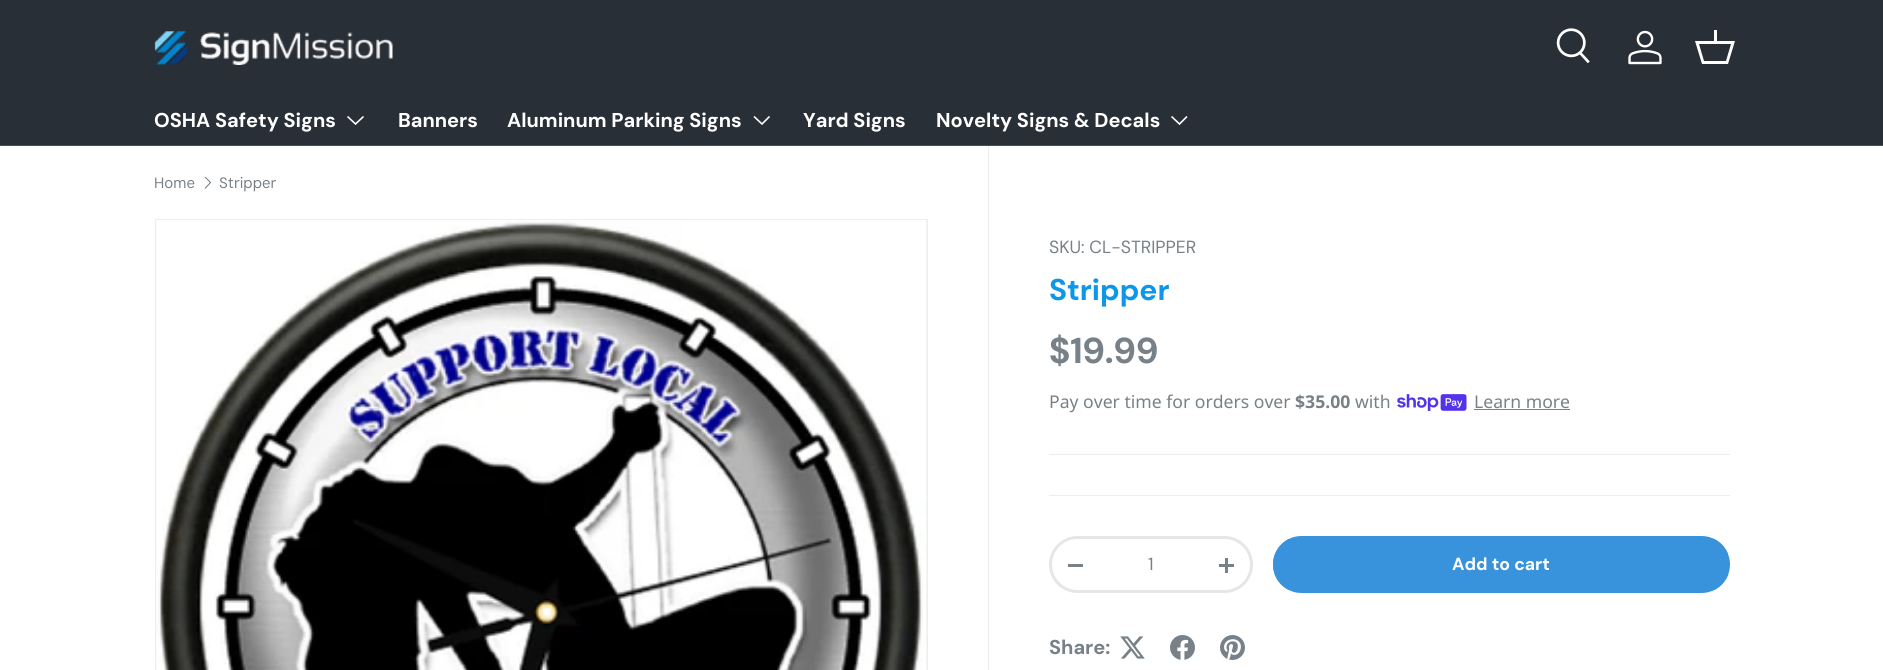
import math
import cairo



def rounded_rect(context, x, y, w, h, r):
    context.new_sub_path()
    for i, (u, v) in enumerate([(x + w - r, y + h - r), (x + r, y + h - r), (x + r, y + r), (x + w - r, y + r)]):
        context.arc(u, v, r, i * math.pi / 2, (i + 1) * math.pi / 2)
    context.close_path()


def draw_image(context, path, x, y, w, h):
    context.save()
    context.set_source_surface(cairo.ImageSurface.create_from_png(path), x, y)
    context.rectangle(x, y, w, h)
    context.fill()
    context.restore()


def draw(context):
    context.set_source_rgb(1, 1, 1)
    context.paint()
    context.set_source_rgb(41 / 255, 47 / 255, 54 / 255)
    context.rectangle(0, 0, 1883, 145)
    context.fill()
    context.set_source_rgb(73 / 255, 78 / 255, 84 / 255)
    context.rectangle(0, 145, 1883, 1)
    context.fill()
    draw_image(context, "images/1.png", 154, 31, 239, 34)
    draw_image(context, "images/2.png", 1556, 28, 34, 36)
    draw_image(context, "images/3.png", 1628, 30, 34, 35)
    context.set_source_rgb(1, 1, 1)
    context.new_path()
    context.move_to(1714, 41)
    context.line_to(1714, 30)
    context.line_to(1717, 30)
    context.line_to(1717, 41)
    context.line_to(1735, 41)
    context.line_to(1728, 64)
    context.line_to(1702, 64)
    context.line_to(1695, 41)
    context.close_path()
    context.move_to(1699, 44)
    context.line_to(1704, 61)
    context.line_to(1726, 61)
    context.line_to(1731, 44)
    context.close_path()
    context.fill()
    context.new_path()
    context.move_to(363.5, 116.5)
    context.line_to(355.5, 124)
    context.line_to(347.5, 116.5)
    context.set_line_width(1.6)
    context.stroke()
    context.new_path()
    context.move_to(769.5, 116.5)
    context.line_to(762, 124)
    context.line_to(754, 116.5)
    context.stroke()
    context.new_path()
    context.move_to(1187, 116.5)
    context.line_to(1179.5, 124)
    context.line_to(1171.5, 116.5)
    context.stroke()
    context.new_path()
    context.move_to(205, 177)
    context.line_to(210.5, 182.5)
    context.line_to(205, 188.5)
    context.set_source_rgb(120 / 255, 129 / 255, 136 / 255)
    context.set_line_width(1.1)
    context.stroke()
    context.set_source_rgb(244 / 255, 244 / 255, 244 / 255)
    context.rectangle(155.5, 219.5, 772, 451)
    context.fill_preserve()
    context.set_source_rgb(238 / 255, 238 / 255, 238 / 255)
    context.set_line_width(1)
    context.stroke()
    draw_image(context, "images/4.png", 156, 220, 770, 450)
    context.set_source_rgb(235 / 255, 236 / 255, 237 / 255)
    context.rectangle(988, 146, 1, 524)
    context.fill()
    draw_image(context, "images/5.png", 1397, 394, 70, 17)
    context.set_source_rgb(120 / 255, 129 / 255, 136 / 255)
    context.rectangle(1474, 409, 96, 1)
    context.fill()
    context.set_source_rgb(235 / 255, 236 / 255, 237 / 255)
    context.rectangle(1049, 454, 681, 1)
    context.fill()
    context.rectangle(1049, 495, 681, 1)
    context.fill()
    rounded_rect(context, 1050.5, 537.5, 201, 54, 27)
    context.set_source_rgb(228 / 255, 230 / 255, 231 / 255)
    context.set_line_width(3)
    context.stroke()
    context.set_source_rgb(120 / 255, 129 / 255, 136 / 255)
    context.rectangle(1068, 564, 15, 3)
    context.fill()
    context.rectangle(1219, 564, 15, 3)
    context.fill()
    context.rectangle(1225, 558, 3, 15)
    context.fill()
    context.save()
    rounded_rect(context, 1273, 536, 457, 57, 28.5)
    context.clip()
    gradient = cairo.LinearGradient(404, 404, 1694, 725)
    gradient.add_color_stop_rgba(0.6, 99 / 255, 170 / 255, 227 / 255, 1)
    gradient.add_color_stop_rgba(0.6, 56 / 255, 147 / 255, 220 / 255, 1)
    gradient.add_color_stop_rgba(1, 56 / 255, 147 / 255, 220 / 255, 1)
    context.set_source(gradient)
    context.rectangle(1273, 539, 455, 51)
    context.fill()
    context.restore()
    rounded_rect(context, 1274.5, 537.5, 454, 54, 27)
    context.set_source_rgb(56 / 255, 147 / 255, 220 / 255)
    context.stroke()
    draw_image(context, "images/6.png", 1120, 636, 25, 23)
    draw_image(context, "images/7.png", 1170, 635, 25, 25)
    draw_image(context, "images/8.png", 1220, 635, 25, 25)
    context.select_font_face("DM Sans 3", cairo.FontSlant.NORMAL, cairo.FontWeight.BOLD)
    context.set_font_size(20)
    context.set_source_rgb(1, 1, 1)
    context.move_to(154, 127)
    context.show_text("OSHA Safety Signs")
    context.move_to(398, 127)
    context.show_text("Banners")
    context.move_to(507, 127)
    context.show_text("Aluminum Parking Signs")
    context.move_to(803, 127)
    context.show_text("Yard Signs")
    context.move_to(936, 127)
    context.show_text("Novelty Signs & Decals")
    context.select_font_face("DM Sans")
    context.set_font_size(15)
    context.set_source_rgb(120 / 255, 129 / 255, 136 / 255)
    context.move_to(154, 188)
    context.show_text("Home")
    context.move_to(219, 188)
    context.show_text("Stripper")
    context.select_font_face("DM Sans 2")
    context.set_font_size(17.6)
    context.move_to(1049, 253)
    context.show_text("SKU: CL-STRIPPER")
    context.select_font_face("DM Sans", cairo.FontSlant.NORMAL, cairo.FontWeight.BOLD)
    context.set_font_size(30)
    context.set_source_rgb(12 / 255, 151 / 255, 232 / 255)
    context.move_to(1049, 300)
    context.show_text("Stripper")
    context.select_font_face("DM Sans 2", cairo.FontSlant.NORMAL, cairo.FontWeight.BOLD)
    context.set_font_size(36)
    context.set_source_rgb(120 / 255, 129 / 255, 136 / 255)
    context.move_to(1049, 363)
    context.show_text("$19.99")
    context.select_font_face("Noto Sans")
    context.set_font_size(17.6)
    context.move_to(1049, 408)
    context.show_text("Pay over time for orders over")
    context.select_font_face("Noto Sans", cairo.FontSlant.NORMAL, cairo.FontWeight.BOLD)
    context.move_to(1295, 408)
    context.show_text("$35.00")
    context.select_font_face("Noto Sans")
    context.move_to(1355, 408)
    context.show_text("with")
    context.move_to(1474, 408)
    context.show_text("Learn more")
    context.select_font_face("DM Sans 2")
    context.move_to(1148, 570)
    context.show_text("1")
    context.select_font_face("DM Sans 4", cairo.FontSlant.NORMAL, cairo.FontWeight.BOLD)
    context.set_source_rgb(1, 1, 1)
    context.move_to(1452, 570)
    context.show_text("Add to cart")
    context.select_font_face("DM Sans 3", cairo.FontSlant.NORMAL, cairo.FontWeight.BOLD)
    context.set_font_size(20)
    context.set_source_rgb(120 / 255, 129 / 255, 136 / 255)
    context.move_to(1049, 654)
    context.show_text("Share:")


surface = cairo.ImageSurface(cairo.Format.RGB24, 1883, 670)
context = cairo.Context(surface)
options = cairo.FontOptions()
options.set_hint_metrics(cairo.HintMetrics.OFF)
options.set_hint_style(cairo.HintStyle.NONE)
context.set_font_options(options)
context.set_miter_limit(4)
draw(context)
surface.write_to_png("out.png")
